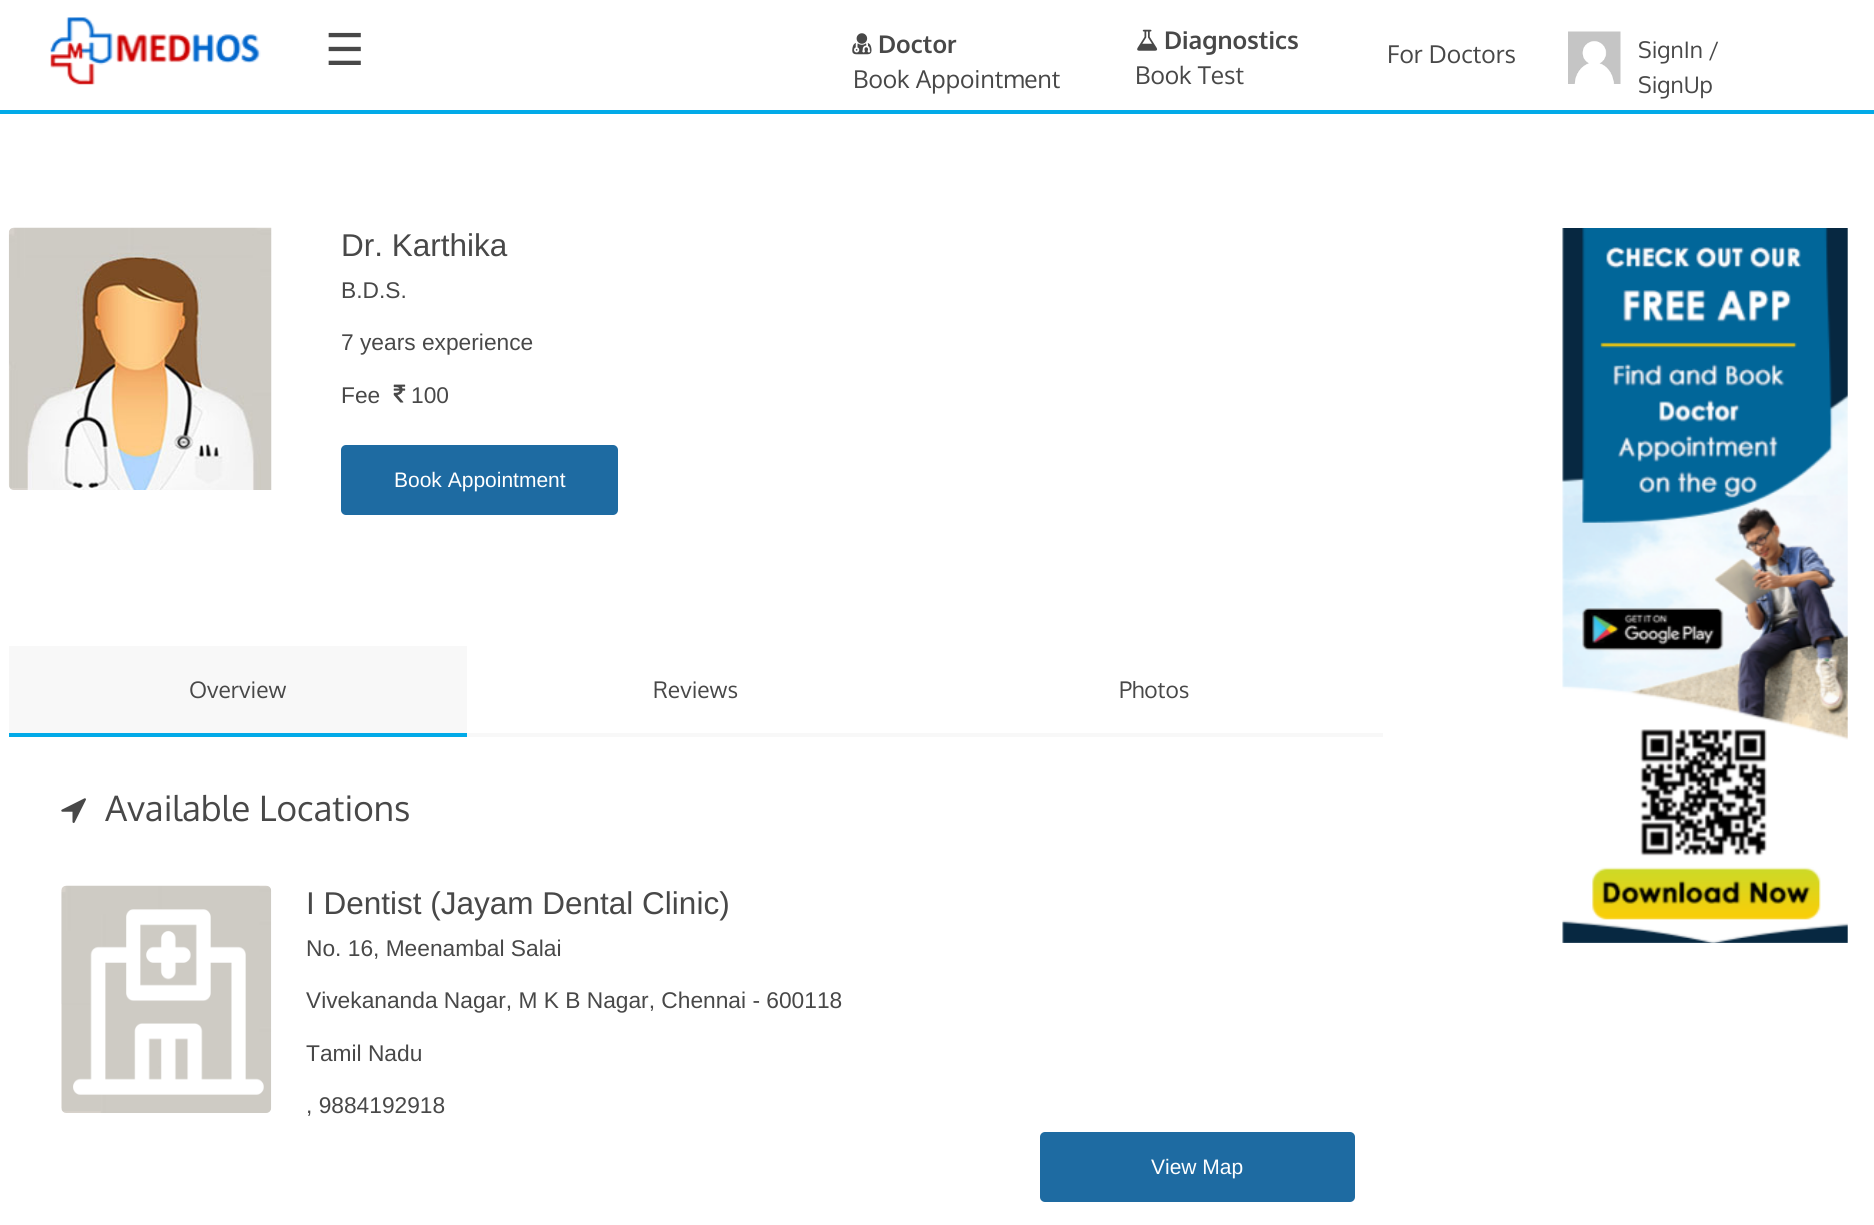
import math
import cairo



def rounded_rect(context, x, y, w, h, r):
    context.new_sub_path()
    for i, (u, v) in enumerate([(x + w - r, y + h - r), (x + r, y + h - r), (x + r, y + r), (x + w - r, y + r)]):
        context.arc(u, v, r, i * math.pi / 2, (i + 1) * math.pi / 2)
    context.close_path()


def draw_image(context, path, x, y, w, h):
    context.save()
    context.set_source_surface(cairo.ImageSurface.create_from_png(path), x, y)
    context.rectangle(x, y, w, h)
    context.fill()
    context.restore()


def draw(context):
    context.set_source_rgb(1, 1, 1)
    context.paint()
    context.set_source_rgb(2 / 255, 170 / 255, 232 / 255)
    context.rectangle(0, 110, 1874, 4)
    context.fill()
    draw_image(context, "images/1.png", 50, 17, 211, 68)
    draw_image(context, "images/2.png", 852, 33, 20, 22)
    draw_image(context, "images/3.png", 1137, 29, 21, 22)
    draw_image(context, "images/4.png", 1568, 31, 53, 53)
    draw_image(context, "images/5.png", 8, 227, 264, 263)
    draw_image(context, "images/6.png", 393, 384, 13, 19)
    context.set_source_rgb(30 / 255, 107 / 255, 162 / 255)
    rounded_rect(context, 341, 445, 277, 70, 5)
    context.fill()
    context.set_source_rgb(248 / 255, 248 / 255, 248 / 255)
    context.rectangle(467, 733, 916, 4)
    context.fill()
    context.rectangle(9, 646, 458, 87)
    context.fill()
    context.set_source_rgb(2 / 255, 170 / 255, 232 / 255)
    context.rectangle(9, 733, 458, 4)
    context.fill()
    draw_image(context, "images/7.png", 61, 798, 25, 25)
    draw_image(context, "images/8.png", 61, 885, 211, 228)
    context.set_source_rgb(30 / 255, 107 / 255, 162 / 255)
    rounded_rect(context, 1040, 1132, 315, 70, 5)
    context.fill()
    draw_image(context, "images/9.png", 1562, 228, 286, 715)
    context.select_font_face("DejaVu Sans")
    context.set_font_size(44)
    context.set_source_rgb(72 / 255, 72 / 255, 72 / 255)
    context.move_to(325, 65)
    context.show_text("☰")
    context.select_font_face("Oxygen", cairo.FontSlant.NORMAL, cairo.FontWeight.BOLD)
    context.set_font_size(24.5)
    context.move_to(878, 53)
    context.show_text("Doctor")
    context.select_font_face("Oxygen")
    context.move_to(853, 88)
    context.show_text("Book Appointment")
    context.select_font_face("Oxygen", cairo.FontSlant.NORMAL, cairo.FontWeight.BOLD)
    context.move_to(1164, 49)
    context.show_text("Diagnostics")
    context.select_font_face("Oxygen")
    context.move_to(1135, 84)
    context.show_text("Book Test")
    context.move_to(1387, 63)
    context.show_text("For Doctors")
    context.set_font_size(22.75)
    context.move_to(1638, 58)
    context.show_text("SignIn /")
    context.move_to(1638, 93)
    context.show_text("SignUp")
    context.select_font_face("Liberation Sans")
    context.set_font_size(31.5)
    context.move_to(341, 256)
    context.show_text("Dr. Karthika")
    context.set_font_size(22.75)
    context.move_to(341, 298)
    context.show_text("B.D.S.")
    context.move_to(341, 350)
    context.show_text("7 years experience")
    context.move_to(341, 403)
    context.show_text("Fee")
    context.move_to(411, 403)
    context.show_text("100")
    context.set_font_size(21)
    context.set_source_rgb(1, 1, 1)
    context.move_to(394, 487)
    context.show_text("Book Appointment")
    context.select_font_face("Oxygen")
    context.set_font_size(22.75)
    context.set_source_rgb(72 / 255, 72 / 255, 72 / 255)
    context.move_to(189, 698)
    context.show_text("Overview")
    context.move_to(653, 698)
    context.show_text("Reviews")
    context.move_to(1119, 698)
    context.show_text("Photos")
    context.set_font_size(35)
    context.move_to(105, 821)
    context.show_text("Available Locations")
    context.select_font_face("Liberation Sans")
    context.set_font_size(31.5)
    context.move_to(306, 914)
    context.show_text("I Dentist (Jayam Dental Clinic)")
    context.set_font_size(22.75)
    context.move_to(306, 956)
    context.show_text("No. 16, Meenambal Salai")
    context.move_to(306, 1008)
    context.show_text("Vivekananda Nagar, M K B Nagar, Chennai - 600118")
    context.move_to(306, 1061)
    context.show_text("Tamil Nadu")
    context.move_to(306, 1113)
    context.show_text(", 9884192918")
    context.set_font_size(21)
    context.set_source_rgb(1, 1, 1)
    context.move_to(1151, 1174)
    context.show_text("View Map")


surface = cairo.ImageSurface(cairo.Format.RGB24, 1874, 1225)
context = cairo.Context(surface)
options = cairo.FontOptions()
options.set_hint_metrics(cairo.HintMetrics.OFF)
options.set_hint_style(cairo.HintStyle.NONE)
context.set_font_options(options)
context.set_miter_limit(4)
draw(context)
surface.write_to_png("out.png")
